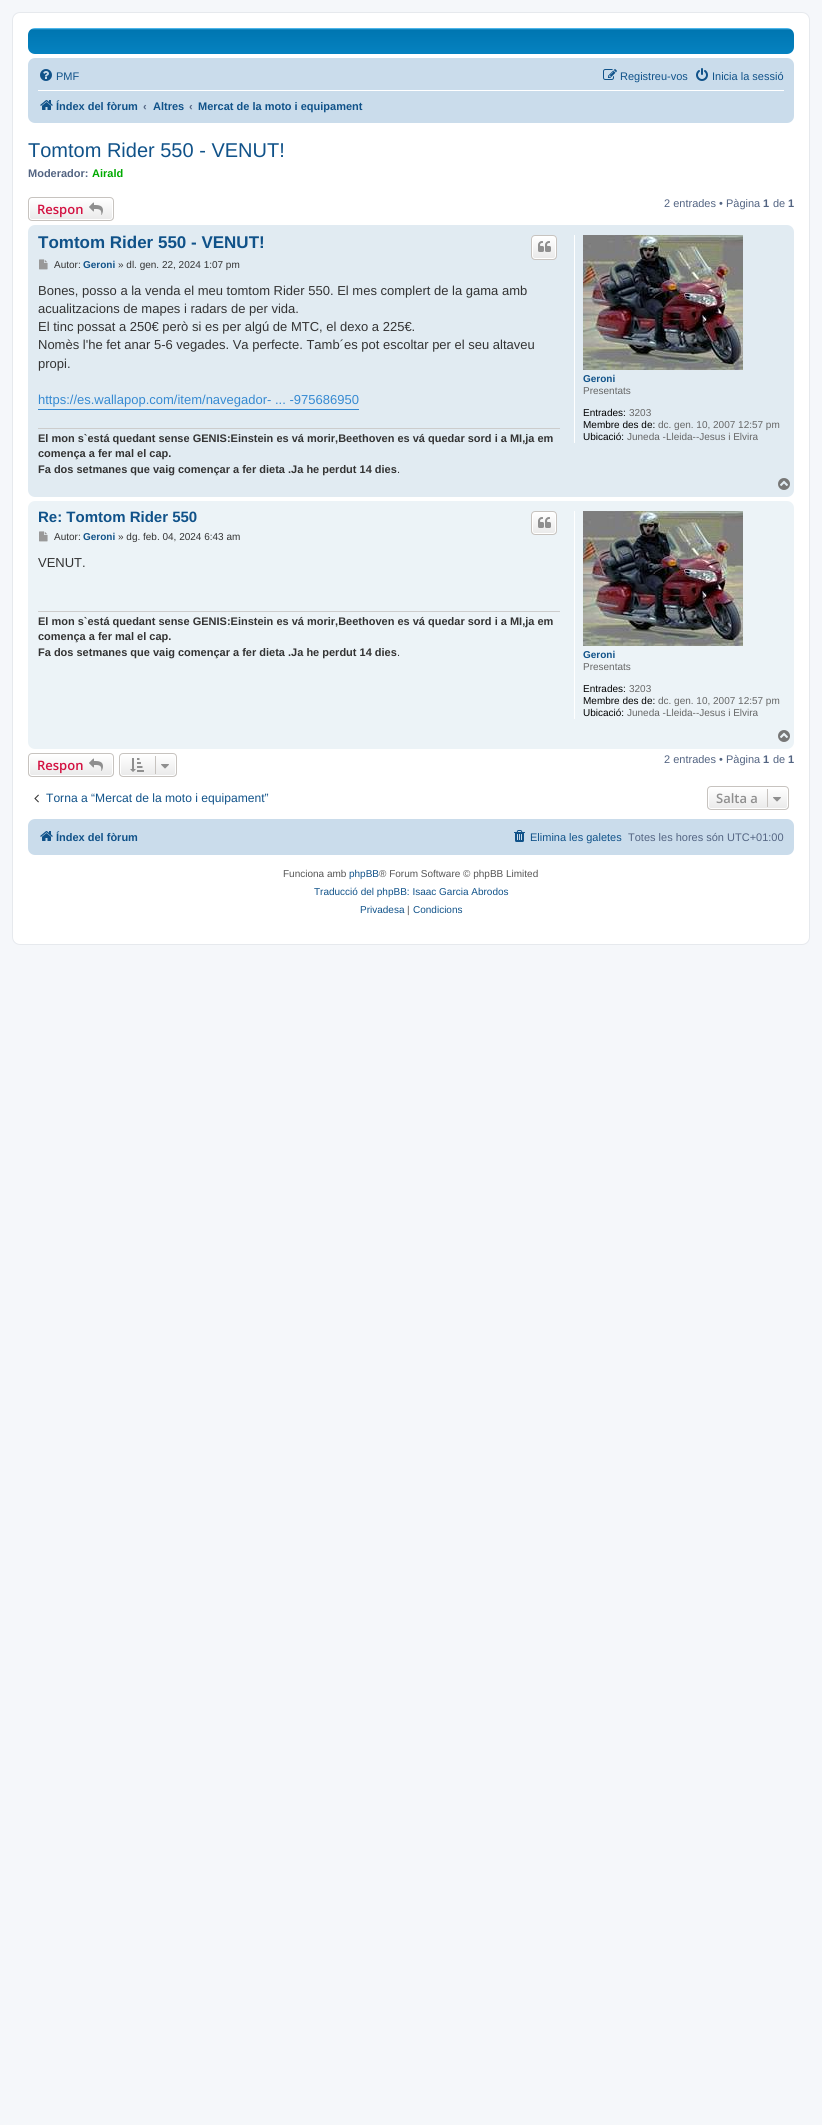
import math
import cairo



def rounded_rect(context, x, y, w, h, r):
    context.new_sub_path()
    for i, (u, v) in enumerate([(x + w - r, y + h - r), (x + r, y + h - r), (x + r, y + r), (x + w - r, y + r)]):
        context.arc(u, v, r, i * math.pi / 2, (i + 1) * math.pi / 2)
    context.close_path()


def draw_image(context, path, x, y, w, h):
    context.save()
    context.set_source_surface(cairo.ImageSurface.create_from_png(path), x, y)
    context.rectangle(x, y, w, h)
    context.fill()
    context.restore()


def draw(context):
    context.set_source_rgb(245 / 255, 247 / 255, 250 / 255)
    context.paint()
    context.set_source_rgb(1, 1, 1)
    rounded_rect(context, 12.5, 12.5, 797, 932, 7.5)
    context.fill_preserve()
    context.set_source_rgb(230 / 255, 233 / 255, 237 / 255)
    context.set_line_width(1)
    context.stroke()
    gradient = cairo.LinearGradient(411, 28, 411, 120)
    gradient.add_color_stop_rgba(0, 106 / 255, 206 / 255, 1, 1)
    gradient.add_color_stop_rgba(0.02, 0, 118 / 255, 177 / 255, 1)
    gradient.add_color_stop_rgba(1, 18 / 255, 163 / 255, 235 / 255, 1)
    context.set_source(gradient)
    rounded_rect(context, 28, 28, 766, 26, 7)
    context.fill()
    context.set_source_rgb(202 / 255, 220 / 255, 235 / 255)
    rounded_rect(context, 28, 58, 766, 65, 7)
    context.fill()
    draw_image(context, "images/1.png", 40, 69, 12, 12)
    draw_image(context, "images/2.png", 603, 69, 14, 11)
    draw_image(context, "images/3.png", 696, 68, 12, 13)
    context.set_source_rgb(1, 1, 1)
    context.rectangle(38, 90, 746, 1)
    context.fill()
    draw_image(context, "images/4.png", 40, 100, 13, 10)
    context.save()
    rounded_rect(context, 28, 197, 86, 24, 4)
    context.clip()
    gradient = cairo.LinearGradient(71, 198, 71, 220)
    gradient.add_color_stop_rgba(0, 1, 1, 1, 1)
    gradient.add_color_stop_rgba(1, 233 / 255, 233 / 255, 233 / 255, 1)
    context.set_source(gradient)
    context.rectangle(28, 198, 86, 22)
    context.fill()
    context.restore()
    rounded_rect(context, 29.5, 198.5, 83, 21, 2.5)
    context.stroke()
    rounded_rect(context, 28.5, 197.5, 85, 23, 3.5)
    context.set_source_rgb(199 / 255, 195 / 255, 191 / 255)
    context.stroke()
    draw_image(context, "images/5.png", 89, 202, 14, 13)
    context.set_source_rgb(225 / 255, 235 / 255, 242 / 255)
    rounded_rect(context, 28, 225, 766, 272, 7)
    context.fill()
    context.save()
    rounded_rect(context, 531, 235, 26, 25, 4)
    context.clip()
    gradient = cairo.LinearGradient(544, 236, 544, 259)
    gradient.add_color_stop_rgba(0, 1, 1, 1, 1)
    gradient.add_color_stop_rgba(1, 233 / 255, 233 / 255, 233 / 255, 1)
    context.set_source(gradient)
    context.rectangle(531, 236, 26, 23)
    context.fill()
    context.restore()
    rounded_rect(context, 532.5, 236.5, 23, 22, 2.5)
    context.set_source_rgb(1, 1, 1)
    context.stroke()
    rounded_rect(context, 531.5, 235.5, 25, 24, 3.5)
    context.set_source_rgb(199 / 255, 195 / 255, 191 / 255)
    context.stroke()
    draw_image(context, "images/6.png", 538, 241, 13, 11)
    draw_image(context, "images/7.png", 39, 259, 9, 11)
    context.set_source_rgb(54 / 255, 138 / 255, 210 / 255)
    context.rectangle(38, 409, 321, 1)
    context.fill()
    context.set_source_rgb(204 / 255, 204 / 255, 204 / 255)
    context.rectangle(38, 428, 522, 1)
    context.fill()
    context.set_source_rgb(1, 1, 1)
    context.rectangle(574, 235, 1, 208)
    context.fill()
    draw_image(context, "images/8.png", 583, 235, 160, 135)
    draw_image(context, "images/9.png", 778, 478, 12, 12)
    context.set_source_rgb(236 / 255, 243 / 255, 247 / 255)
    rounded_rect(context, 28, 501, 766, 248, 7)
    context.fill()
    context.save()
    rounded_rect(context, 531, 511, 26, 24, 4)
    context.clip()
    gradient = cairo.LinearGradient(544, 512, 544, 534)
    gradient.add_color_stop_rgba(0, 1, 1, 1, 1)
    gradient.add_color_stop_rgba(1, 233 / 255, 233 / 255, 233 / 255, 1)
    context.set_source(gradient)
    context.rectangle(531, 512, 26, 22)
    context.fill()
    context.restore()
    rounded_rect(context, 532.5, 512.5, 23, 21, 2.5)
    context.set_source_rgb(1, 1, 1)
    context.stroke()
    rounded_rect(context, 531.5, 511.5, 25, 23, 3.5)
    context.set_source_rgb(199 / 255, 195 / 255, 191 / 255)
    context.stroke()
    draw_image(context, "images/6.png", 538, 517, 13, 11)
    draw_image(context, "images/10.png", 39, 531, 9, 11)
    context.set_source_rgb(204 / 255, 204 / 255, 204 / 255)
    context.rectangle(38, 611, 522, 1)
    context.fill()
    context.set_source_rgb(1, 1, 1)
    context.rectangle(574, 511, 1, 208)
    context.fill()
    draw_image(context, "images/8.png", 583, 511, 160, 135)
    draw_image(context, "images/11.png", 778, 730, 12, 12)
    context.save()
    rounded_rect(context, 28, 753, 86, 24, 4)
    context.clip()
    gradient = cairo.LinearGradient(71, 754, 71, 776)
    gradient.add_color_stop_rgba(0, 1, 1, 1, 1)
    gradient.add_color_stop_rgba(1, 233 / 255, 233 / 255, 233 / 255, 1)
    context.set_source(gradient)
    context.rectangle(28, 754, 86, 22)
    context.fill()
    context.restore()
    rounded_rect(context, 29.5, 754.5, 83, 21, 2.5)
    context.stroke()
    rounded_rect(context, 28.5, 753.5, 85, 23, 3.5)
    context.set_source_rgb(199 / 255, 195 / 255, 191 / 255)
    context.stroke()
    draw_image(context, "images/5.png", 89, 758, 14, 13)
    context.save()
    rounded_rect(context, 119, 753, 58, 24, 4)
    context.clip()
    gradient = cairo.LinearGradient(148, 754, 148, 776)
    gradient.add_color_stop_rgba(0, 1, 1, 1, 1)
    gradient.add_color_stop_rgba(1, 233 / 255, 233 / 255, 233 / 255, 1)
    context.set_source(gradient)
    context.rectangle(119, 754, 58, 22)
    context.fill()
    context.restore()
    rounded_rect(context, 120.5, 754.5, 55, 21, 2.5)
    context.set_source_rgb(1, 1, 1)
    context.stroke()
    rounded_rect(context, 119.5, 753.5, 57, 23, 3.5)
    context.set_source_rgb(199 / 255, 195 / 255, 191 / 255)
    context.stroke()
    draw_image(context, "images/12.png", 130, 758, 14, 14)
    context.rectangle(155, 756, 1, 18)
    context.fill()
    draw_image(context, "images/13.png", 161, 764, 8, 5)
    draw_image(context, "images/14.png", 34, 794, 5, 9)
    context.save()
    rounded_rect(context, 707, 786, 82, 24, 4)
    context.clip()
    gradient = cairo.LinearGradient(748, 787, 748, 809)
    gradient.add_color_stop_rgba(0, 1, 1, 1, 1)
    gradient.add_color_stop_rgba(1, 233 / 255, 233 / 255, 233 / 255, 1)
    context.set_source(gradient)
    context.rectangle(707, 787, 82, 22)
    context.fill()
    context.restore()
    rounded_rect(context, 708.5, 787.5, 79, 21, 2.5)
    context.set_source_rgb(1, 1, 1)
    context.stroke()
    rounded_rect(context, 707.5, 786.5, 81, 23, 3.5)
    context.set_source_rgb(199 / 255, 195 / 255, 191 / 255)
    context.stroke()
    context.rectangle(767, 789, 1, 18)
    context.fill()
    draw_image(context, "images/13.png", 773, 797, 8, 5)
    context.set_source_rgb(202 / 255, 220 / 255, 235 / 255)
    rounded_rect(context, 28, 819, 766, 36, 7)
    context.fill()
    draw_image(context, "images/4.png", 40, 831, 13, 10)
    draw_image(context, "images/15.png", 514, 830, 11, 12)
    context.select_font_face("Liberation Sans")
    context.set_font_size(11)
    context.set_source_rgb(16 / 255, 82 / 255, 137 / 255)
    context.move_to(56, 80)
    context.show_text("PMF")
    context.move_to(620, 80)
    context.show_text("Registreu-vos")
    context.move_to(712, 80)
    context.show_text("Inicia la sessió")
    context.select_font_face("Liberation Sans", cairo.FontSlant.NORMAL, cairo.FontWeight.BOLD)
    context.move_to(56, 110)
    context.show_text("Índex del fòrum")
    context.set_source_rgb(83 / 255, 100 / 255, 130 / 255)
    context.move_to(143, 110)
    context.show_text("‹")
    context.set_source_rgb(16 / 255, 82 / 255, 137 / 255)
    context.move_to(153, 110)
    context.show_text("Altres")
    context.set_source_rgb(83 / 255, 100 / 255, 130 / 255)
    context.move_to(189, 110)
    context.show_text("‹")
    context.set_source_rgb(16 / 255, 82 / 255, 137 / 255)
    context.move_to(198, 110)
    context.show_text("Mercat de la moto i equipament")
    context.select_font_face("Liberation Sans")
    context.set_font_size(20)
    context.move_to(28, 157)
    context.show_text("Tomtom Rider 550 - VENUT!")
    context.select_font_face("Liberation Sans", cairo.FontSlant.NORMAL, cairo.FontWeight.BOLD)
    context.set_font_size(11)
    context.set_source_rgb(83 / 255, 100 / 255, 130 / 255)
    context.move_to(28, 177)
    context.show_text("Moderador:")
    context.set_source_rgb(0, 170 / 255, 0)
    context.move_to(92, 177)
    context.show_text("Airald")
    context.select_font_face("Open Sans SemiBold")
    context.set_font_size(13)
    context.set_source_rgb(211 / 255, 17 / 255, 65 / 255)
    context.move_to(37, 214)
    context.show_text("Respon")
    context.select_font_face("Liberation Sans")
    context.set_font_size(11)
    context.set_source_rgb(83 / 255, 100 / 255, 130 / 255)
    context.move_to(664, 207)
    context.show_text("2 entrades • Pàgina")
    context.select_font_face("Liberation Sans", cairo.FontSlant.NORMAL, cairo.FontWeight.BOLD)
    context.move_to(763, 207)
    context.show_text("1")
    context.select_font_face("Liberation Sans")
    context.move_to(773, 207)
    context.show_text("de")
    context.select_font_face("Liberation Sans", cairo.FontSlant.NORMAL, cairo.FontWeight.BOLD)
    context.move_to(788, 207)
    context.show_text("1")
    context.set_font_size(17)
    context.set_source_rgb(16 / 255, 82 / 255, 137 / 255)
    context.move_to(38, 248)
    context.show_text("Tomtom Rider 550 - VENUT!")
    context.select_font_face("Liberation Sans")
    context.set_font_size(10)
    context.set_source_rgb(51 / 255, 51 / 255, 51 / 255)
    context.move_to(54, 268)
    context.show_text("Autor:")
    context.select_font_face("Liberation Sans", cairo.FontSlant.NORMAL, cairo.FontWeight.BOLD)
    context.set_source_rgb(16 / 255, 82 / 255, 137 / 255)
    context.move_to(83, 268)
    context.show_text("Geroni")
    context.select_font_face("Liberation Sans")
    context.set_source_rgb(51 / 255, 51 / 255, 51 / 255)
    context.move_to(118, 268)
    context.show_text("» dl. gen. 22, 2024 1:07 pm")
    context.set_font_size(13)
    context.move_to(38, 295)
    context.show_text("Bones, posso a la venda el meu tomtom Rider 550. El mes complert de la gama amb")
    context.move_to(38, 313)
    context.show_text("acualitzacions de mapes i radars de per vida.")
    context.move_to(38, 331)
    context.show_text("El tinc possat a 250€ però si es per algú de MTC, el dexo a 225€.")
    context.move_to(38, 349)
    context.show_text("Nomès l'he fet anar 5-6 vegades. Va perfecte. Tamb´es pot escoltar per el seu altaveu")
    context.move_to(38, 368)
    context.show_text("propi.")
    context.set_source_rgb(54 / 255, 138 / 255, 210 / 255)
    context.move_to(38, 404)
    context.show_text("https://es.wallapop.com/item/navegador- ... -975686950")
    context.select_font_face("Liberation Sans", cairo.FontSlant.NORMAL, cairo.FontWeight.BOLD)
    context.set_font_size(11)
    context.set_source_rgb(51 / 255, 51 / 255, 51 / 255)
    context.move_to(38, 442)
    context.show_text("El mon s`está quedant sense GENIS:Einstein es vá morir,Beethoven es vá quedar sord i a MI,ja em")
    context.move_to(38, 457)
    context.show_text("comença a fer mal el cap.")
    context.move_to(38, 473)
    context.show_text("Fa dos setmanes que vaig començar a fer dieta .Ja he perdut 14 dies")
    context.select_font_face("Liberation Sans")
    context.move_to(397, 473)
    context.show_text(".")
    context.select_font_face("Liberation Sans", cairo.FontSlant.NORMAL, cairo.FontWeight.BOLD)
    context.set_font_size(10)
    context.set_source_rgb(16 / 255, 82 / 255, 137 / 255)
    context.move_to(583, 382)
    context.show_text("Geroni")
    context.select_font_face("Liberation Sans")
    context.set_source_rgb(102 / 255, 102 / 255, 102 / 255)
    context.move_to(583, 394)
    context.show_text("Presentats")
    context.set_source_rgb(0, 0, 0)
    context.move_to(583, 416)
    context.show_text("Entrades:")
    context.set_source_rgb(102 / 255, 102 / 255, 102 / 255)
    context.move_to(629, 416)
    context.show_text("3203")
    context.set_source_rgb(0, 0, 0)
    context.move_to(583, 428)
    context.show_text("Membre des de:")
    context.set_source_rgb(102 / 255, 102 / 255, 102 / 255)
    context.move_to(658, 428)
    context.show_text("dc. gen. 10, 2007 12:57 pm")
    context.set_source_rgb(0, 0, 0)
    context.move_to(583, 440)
    context.show_text("Ubicació:")
    context.set_source_rgb(102 / 255, 102 / 255, 102 / 255)
    context.move_to(627, 440)
    context.show_text("Juneda -Lleida--Jesus i Elvira")
    context.select_font_face("Liberation Sans", cairo.FontSlant.NORMAL, cairo.FontWeight.BOLD)
    context.set_font_size(15)
    context.set_source_rgb(16 / 255, 82 / 255, 137 / 255)
    context.move_to(38, 522)
    context.show_text("Re: Tomtom Rider 550")
    context.select_font_face("Liberation Sans")
    context.set_font_size(10)
    context.set_source_rgb(51 / 255, 51 / 255, 51 / 255)
    context.move_to(54, 540)
    context.show_text("Autor:")
    context.select_font_face("Liberation Sans", cairo.FontSlant.NORMAL, cairo.FontWeight.BOLD)
    context.set_source_rgb(16 / 255, 82 / 255, 137 / 255)
    context.move_to(83, 540)
    context.show_text("Geroni")
    context.select_font_face("Liberation Sans")
    context.set_source_rgb(51 / 255, 51 / 255, 51 / 255)
    context.move_to(118, 540)
    context.show_text("» dg. feb. 04, 2024 6:43 am")
    context.set_font_size(13)
    context.move_to(38, 567)
    context.show_text("VENUT.")
    context.select_font_face("Liberation Sans", cairo.FontSlant.NORMAL, cairo.FontWeight.BOLD)
    context.set_font_size(11)
    context.move_to(38, 625)
    context.show_text("El mon s`está quedant sense GENIS:Einstein es vá morir,Beethoven es vá quedar sord i a MI,ja em")
    context.move_to(38, 640)
    context.show_text("comença a fer mal el cap.")
    context.move_to(38, 656)
    context.show_text("Fa dos setmanes que vaig començar a fer dieta .Ja he perdut 14 dies")
    context.select_font_face("Liberation Sans")
    context.move_to(397, 656)
    context.show_text(".")
    context.select_font_face("Liberation Sans", cairo.FontSlant.NORMAL, cairo.FontWeight.BOLD)
    context.set_font_size(10)
    context.set_source_rgb(16 / 255, 82 / 255, 137 / 255)
    context.move_to(583, 658)
    context.show_text("Geroni")
    context.select_font_face("Liberation Sans")
    context.set_source_rgb(102 / 255, 102 / 255, 102 / 255)
    context.move_to(583, 670)
    context.show_text("Presentats")
    context.set_source_rgb(0, 0, 0)
    context.move_to(583, 692)
    context.show_text("Entrades:")
    context.set_source_rgb(102 / 255, 102 / 255, 102 / 255)
    context.move_to(629, 692)
    context.show_text("3203")
    context.set_source_rgb(0, 0, 0)
    context.move_to(583, 704)
    context.show_text("Membre des de:")
    context.set_source_rgb(102 / 255, 102 / 255, 102 / 255)
    context.move_to(658, 704)
    context.show_text("dc. gen. 10, 2007 12:57 pm")
    context.set_source_rgb(0, 0, 0)
    context.move_to(583, 716)
    context.show_text("Ubicació:")
    context.set_source_rgb(102 / 255, 102 / 255, 102 / 255)
    context.move_to(627, 716)
    context.show_text("Juneda -Lleida--Jesus i Elvira")
    context.select_font_face("Open Sans SemiBold")
    context.set_font_size(13)
    context.set_source_rgb(211 / 255, 17 / 255, 65 / 255)
    context.move_to(37, 770)
    context.show_text("Respon")
    context.select_font_face("Liberation Sans")
    context.set_font_size(11)
    context.set_source_rgb(83 / 255, 100 / 255, 130 / 255)
    context.move_to(664, 763)
    context.show_text("2 entrades • Pàgina")
    context.select_font_face("Liberation Sans", cairo.FontSlant.NORMAL, cairo.FontWeight.BOLD)
    context.move_to(763, 763)
    context.show_text("1")
    context.select_font_face("Liberation Sans")
    context.move_to(773, 763)
    context.show_text("de")
    context.select_font_face("Liberation Sans", cairo.FontSlant.NORMAL, cairo.FontWeight.BOLD)
    context.move_to(788, 763)
    context.show_text("1")
    context.select_font_face("Liberation Sans")
    context.set_font_size(12.1)
    context.set_source_rgb(16 / 255, 82 / 255, 137 / 255)
    context.move_to(46, 802)
    context.show_text("Torna a “Mercat de la moto i equipament”")
    context.select_font_face("Open Sans SemiBold")
    context.set_font_size(13)
    context.set_source_rgb(143 / 255, 143 / 255, 143 / 255)
    context.move_to(716, 803)
    context.show_text("Salta a")
    context.select_font_face("Liberation Sans", cairo.FontSlant.NORMAL, cairo.FontWeight.BOLD)
    context.set_font_size(11)
    context.set_source_rgb(16 / 255, 82 / 255, 137 / 255)
    context.move_to(56, 841)
    context.show_text("Índex del fòrum")
    context.select_font_face("Liberation Sans")
    context.move_to(530, 841)
    context.show_text("Elimina les galetes")
    context.set_source_rgb(83 / 255, 100 / 255, 130 / 255)
    context.move_to(628, 841)
    context.show_text("Totes les hores són UTC+01:00")
    context.set_font_size(10)
    context.set_source_rgb(85 / 255, 85 / 255, 85 / 255)
    context.move_to(283, 877)
    context.show_text("Funciona amb")
    context.set_source_rgb(16 / 255, 82 / 255, 137 / 255)
    context.move_to(349, 877)
    context.show_text("phpBB")
    context.set_source_rgb(85 / 255, 85 / 255, 85 / 255)
    context.move_to(379, 877)
    context.show_text("® Forum Software © phpBB Limited")
    context.set_source_rgb(16 / 255, 82 / 255, 137 / 255)
    context.move_to(314, 895)
    context.show_text("Traducció del phpBB: Isaac Garcia Abrodos")
    context.move_to(360, 913)
    context.show_text("Privadesa")
    context.set_source_rgb(85 / 255, 85 / 255, 85 / 255)
    context.move_to(407, 913)
    context.show_text("|")
    context.set_source_rgb(16 / 255, 82 / 255, 137 / 255)
    context.move_to(413, 913)
    context.show_text("Condicions")


surface = cairo.ImageSurface(cairo.Format.RGB24, 822, 2125)
context = cairo.Context(surface)
options = cairo.FontOptions()
options.set_hint_metrics(cairo.HintMetrics.OFF)
options.set_hint_style(cairo.HintStyle.NONE)
context.set_font_options(options)
context.set_miter_limit(4)
draw(context)
surface.write_to_png("out.png")
